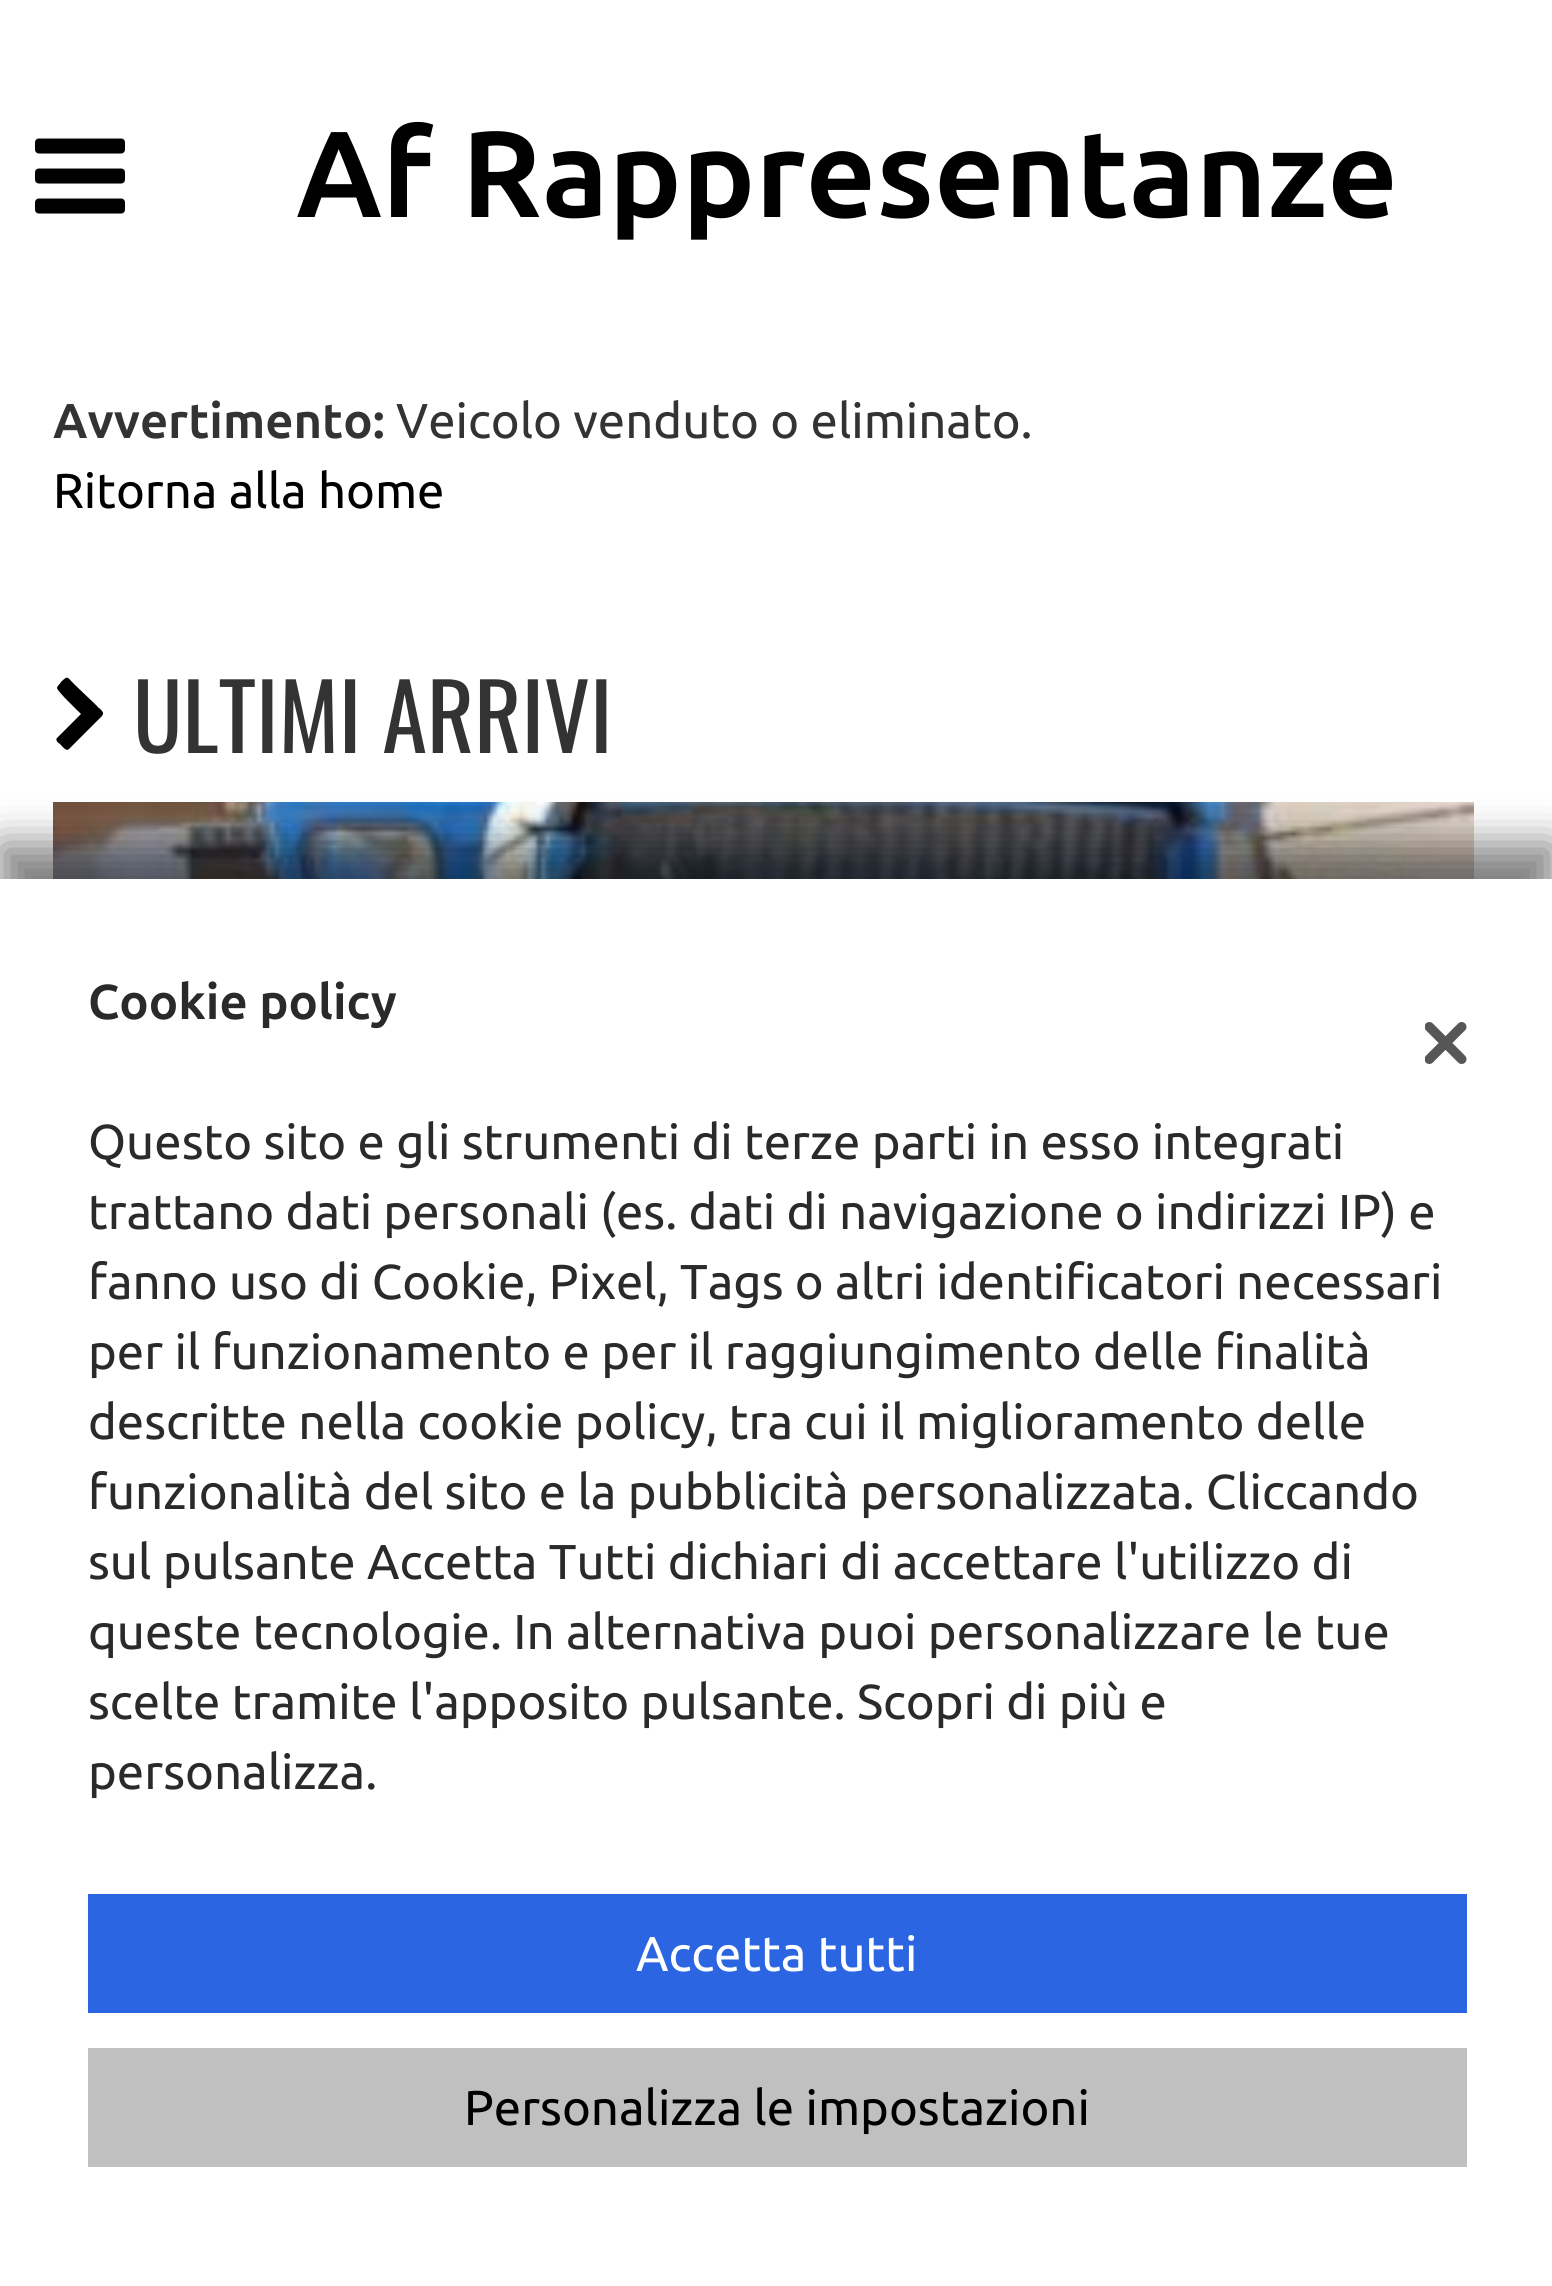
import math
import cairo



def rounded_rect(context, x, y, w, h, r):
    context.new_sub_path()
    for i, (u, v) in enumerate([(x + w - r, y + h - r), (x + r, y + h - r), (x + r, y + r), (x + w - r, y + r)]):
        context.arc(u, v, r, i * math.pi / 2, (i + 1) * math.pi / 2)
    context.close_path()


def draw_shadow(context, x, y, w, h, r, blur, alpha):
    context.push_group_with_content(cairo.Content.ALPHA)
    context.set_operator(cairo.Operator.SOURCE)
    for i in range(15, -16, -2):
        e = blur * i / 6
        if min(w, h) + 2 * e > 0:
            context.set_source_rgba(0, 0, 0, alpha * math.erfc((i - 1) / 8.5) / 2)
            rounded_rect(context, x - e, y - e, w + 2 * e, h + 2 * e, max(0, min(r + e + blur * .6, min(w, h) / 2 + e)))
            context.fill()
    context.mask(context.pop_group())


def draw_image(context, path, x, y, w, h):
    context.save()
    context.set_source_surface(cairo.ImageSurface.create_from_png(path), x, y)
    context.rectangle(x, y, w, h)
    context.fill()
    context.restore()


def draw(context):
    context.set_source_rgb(1, 1, 1)
    context.paint()
    draw_image(context, "images/1.png", 35, 138, 90, 76)
    context.set_source_rgb(0, 0, 0)
    context.new_path()
    context.move_to(102, 716)
    context.line_to(69, 749)
    context.curve_to(66, 752, 62, 746, 60, 744)
    context.curve_to(58, 743, 55, 740, 57, 738)
    context.line_to(81, 714)
    context.curve_to(78, 711, 57, 691, 57, 688)
    context.curve_to(57, 686, 60, 684, 61, 682)
    context.curve_to(68, 675, 67, 677, 74, 684)
    context.line_to(97, 706)
    context.curve_to(97, 707, 104, 711, 103, 714)
    context.close_path()
    context.fill()
    draw_image(context, "images/2.png", 53, 802, 1421, 77)
    context.set_source_rgb(0, 0, 0)
    draw_shadow(context, 0, 844, 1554, 1410, 0, 21, 0.5)
    context.set_source_rgb(1, 1, 1)
    context.rectangle(0, 879, 1552, 1407)
    context.fill()
    draw_image(context, "images/3.png", 1425, 1022, 42, 42)
    context.set_source_rgb(44 / 255, 101 / 255, 225 / 255)
    context.rectangle(88, 1894, 1379, 119)
    context.fill()
    context.set_source_rgb(192 / 255, 192 / 255, 192 / 255)
    context.rectangle(88, 2048, 1379, 119)
    context.fill()
    context.select_font_face("Ubuntu", cairo.FontSlant.NORMAL, cairo.FontWeight.BOLD)
    context.set_font_size(122.5)
    context.set_source_rgb(0, 0, 0)
    context.move_to(296, 217)
    context.show_text("Af Rappresentanze")
    context.set_font_size(49)
    context.set_source_rgb(51 / 255, 51 / 255, 51 / 255)
    context.move_to(53, 438)
    context.show_text("Avvertimento:")
    context.select_font_face("Ubuntu")
    context.move_to(396, 438)
    context.show_text("Veicolo venduto o eliminato.")
    context.set_source_rgb(0, 0, 0)
    context.move_to(53, 508)
    context.show_text("Ritorna alla home")
    context.select_font_face("Oswald")
    context.set_font_size(91)
    context.set_source_rgb(51 / 255, 51 / 255, 51 / 255)
    context.move_to(133, 753)
    context.show_text("ULTIMI ARRIVI")
    context.select_font_face("Ubuntu", cairo.FontSlant.NORMAL, cairo.FontWeight.BOLD)
    context.set_font_size(49)
    context.set_source_rgb(43 / 255, 41 / 255, 41 / 255)
    context.move_to(88, 1019)
    context.show_text("Cookie policy")
    context.select_font_face("Ubuntu")
    context.move_to(88, 1159)
    context.show_text("Questo sito e gli strumenti di terze parti in esso integrati")
    context.move_to(88, 1229)
    context.show_text("trattano dati personali (es. dati di navigazione o indirizzi IP) e")
    context.move_to(88, 1299)
    context.show_text("fanno uso di Cookie, Pixel, Tags o altri identificatori necessari")
    context.move_to(88, 1369)
    context.show_text("per il funzionamento e per il raggiungimento delle finalità")
    context.move_to(88, 1439)
    context.show_text("descritte nella cookie policy, tra cui il miglioramento delle")
    context.move_to(88, 1509)
    context.show_text("funzionalità del sito e la pubblicità personalizzata. Cliccando")
    context.move_to(88, 1579)
    context.show_text("sul pulsante Accetta Tutti dichiari di accettare l'utilizzo di")
    context.move_to(88, 1649)
    context.show_text("queste tecnologie. In alternativa puoi personalizzare le tue")
    context.move_to(88, 1719)
    context.show_text("scelte tramite l'apposito pulsante. Scopri di più e")
    context.move_to(88, 1789)
    context.show_text("personalizza.")
    context.set_source_rgb(1, 1, 1)
    context.move_to(636, 1971)
    context.show_text("Accetta tutti")
    context.set_source_rgb(0, 0, 0)
    context.move_to(464, 2125)
    context.show_text("Personalizza le impostazioni")


surface = cairo.ImageSurface(cairo.Format.RGB24, 1552, 2286)
context = cairo.Context(surface)
options = cairo.FontOptions()
options.set_hint_metrics(cairo.HintMetrics.OFF)
options.set_hint_style(cairo.HintStyle.NONE)
context.set_font_options(options)
context.set_miter_limit(4)
draw(context)
surface.write_to_png("out.png")
